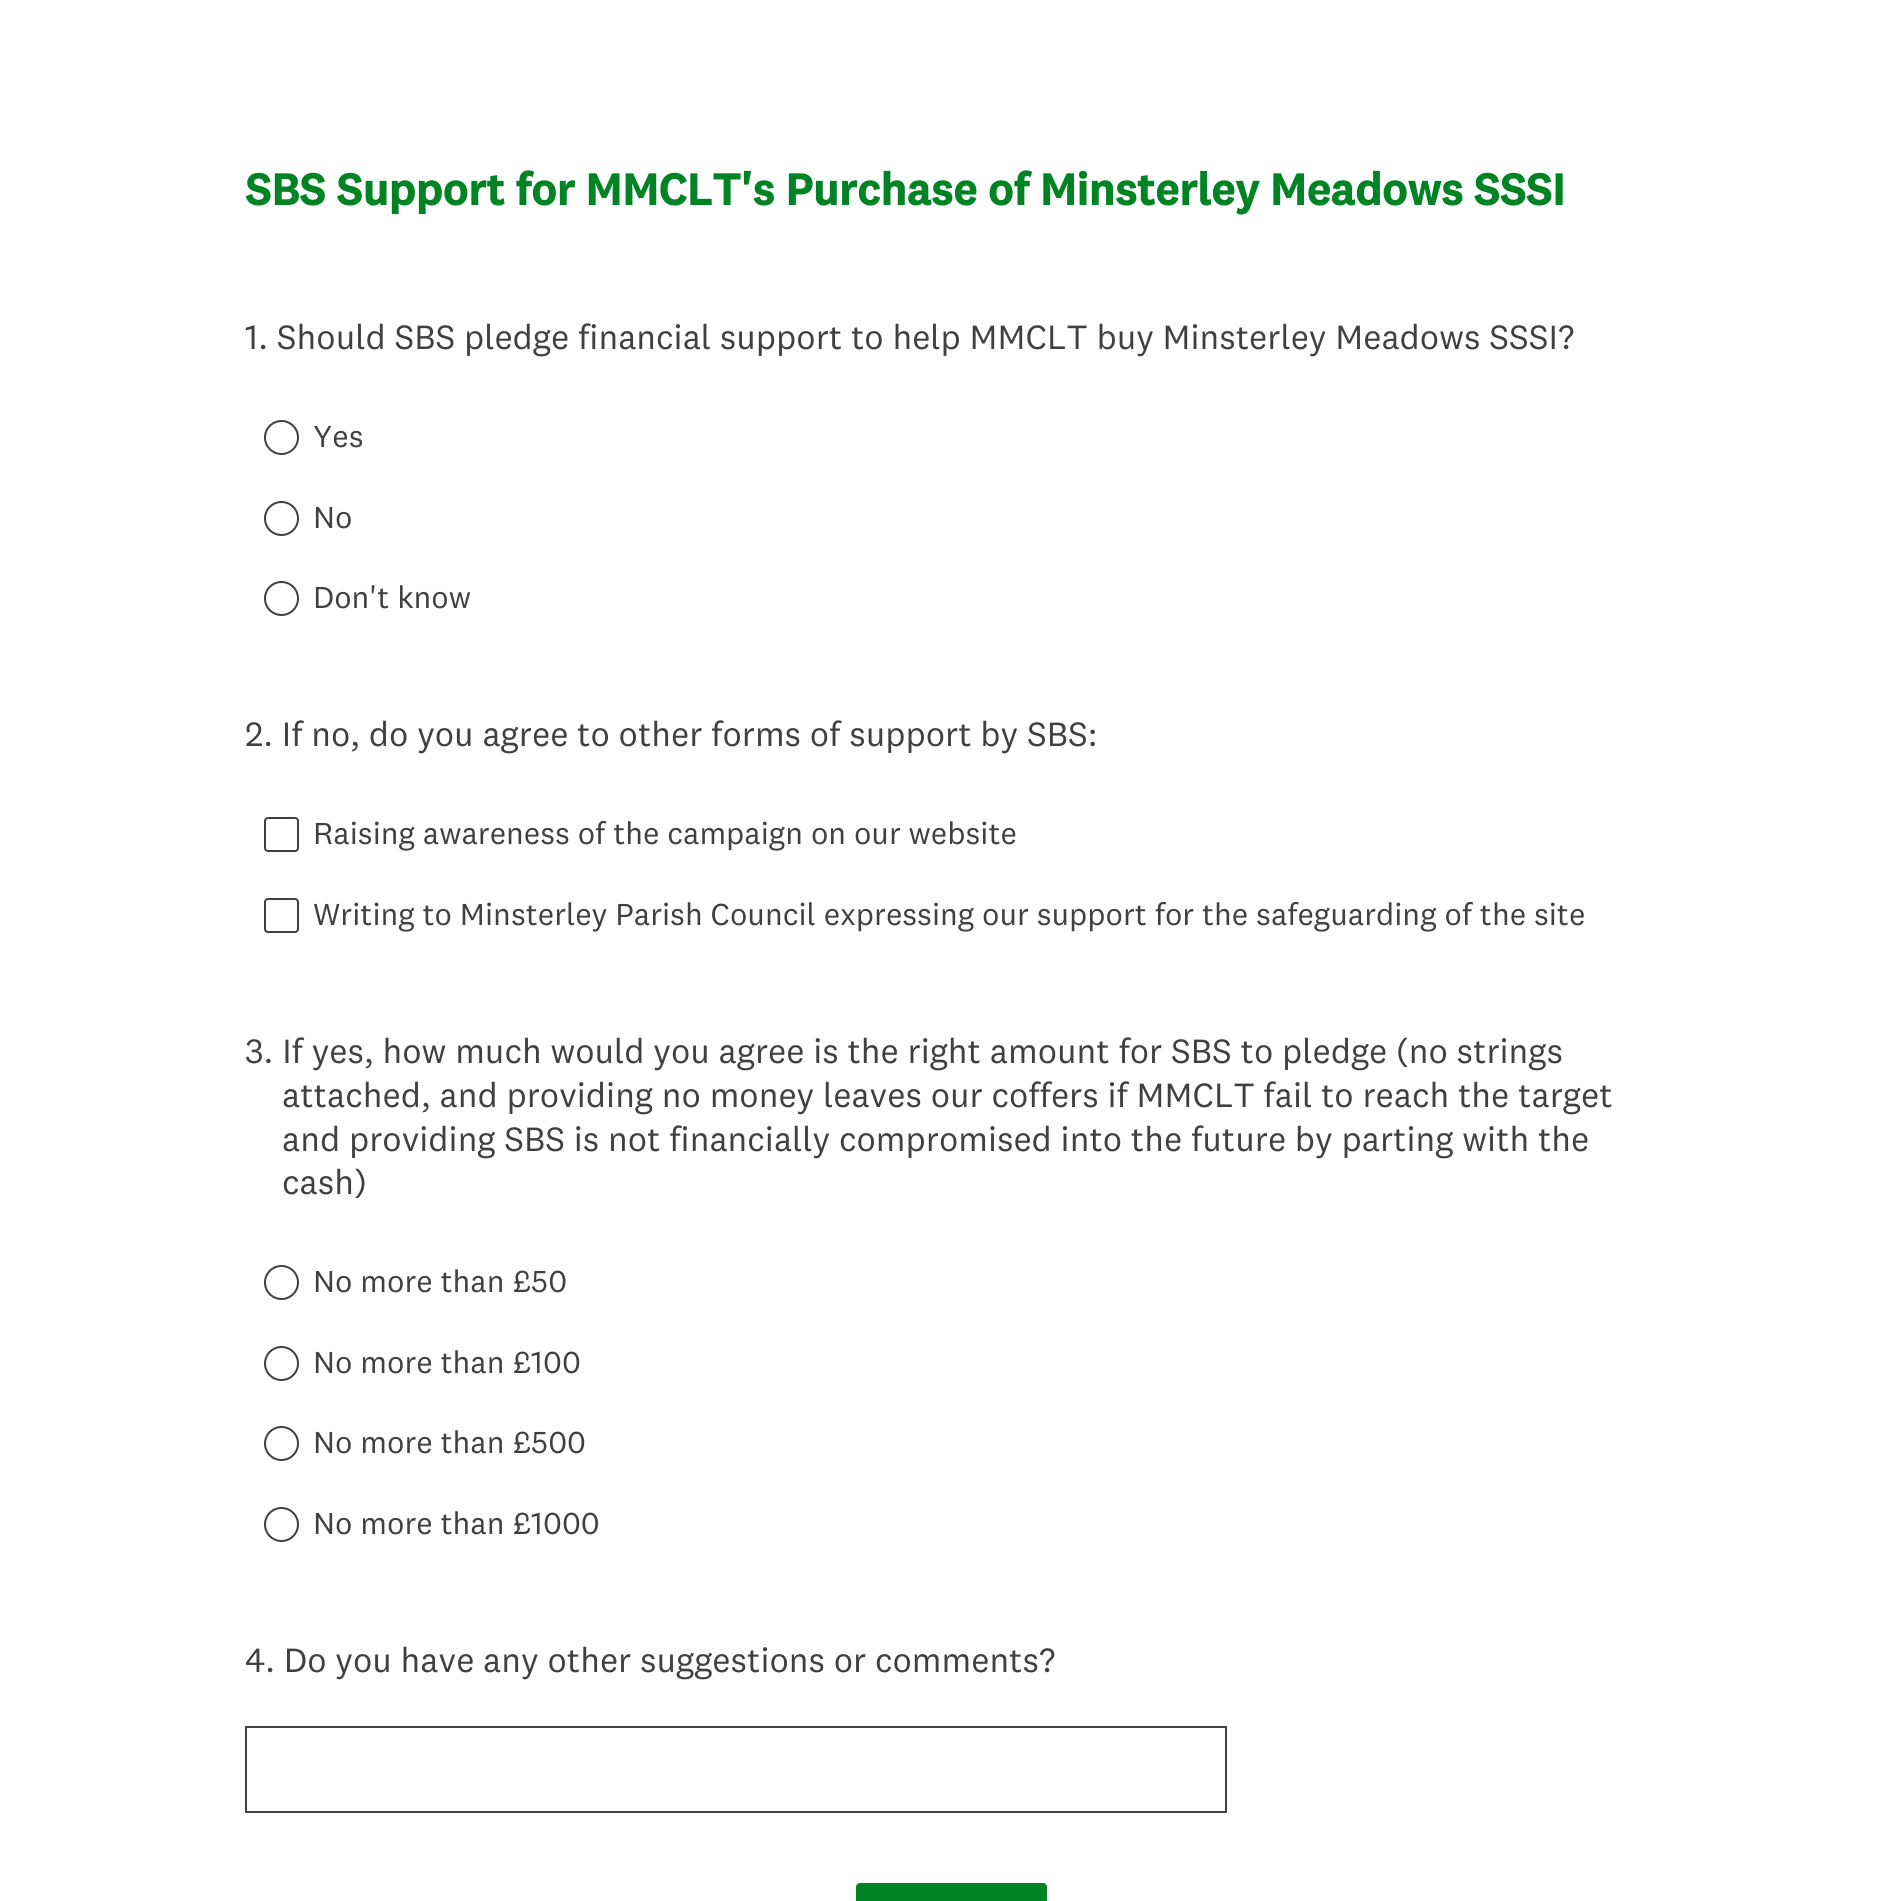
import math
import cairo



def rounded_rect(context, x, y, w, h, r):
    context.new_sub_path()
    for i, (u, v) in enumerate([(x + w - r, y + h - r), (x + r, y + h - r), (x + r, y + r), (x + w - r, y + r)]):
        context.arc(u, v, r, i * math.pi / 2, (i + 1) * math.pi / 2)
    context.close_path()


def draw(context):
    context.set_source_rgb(1, 1, 1)
    context.paint()
    context.arc(281.5, 437.5, 16.5, 0, 2 * math.pi)
    context.set_source_rgb(64 / 255, 64 / 255, 64 / 255)
    context.stroke()
    context.arc(281.5, 518.5, 16.5, 0, 2 * math.pi)
    context.stroke()
    context.arc(281.5, 598.5, 16.5, 0, 2 * math.pi)
    context.stroke()
    rounded_rect(context, 265, 818, 33, 33, 3)
    context.stroke()
    rounded_rect(context, 265, 899, 33, 33, 3)
    context.stroke()
    context.arc(281.5, 1282.5, 16.5, 0, 2 * math.pi)
    context.stroke()
    context.arc(281.5, 1363.5, 16.5, 0, 2 * math.pi)
    context.stroke()
    context.arc(281.5, 1443.5, 16.5, 0, 2 * math.pi)
    context.stroke()
    context.arc(281.5, 1524.5, 16.5, 0, 2 * math.pi)
    context.stroke()
    context.rectangle(246, 1727, 980, 85)
    context.stroke()
    context.set_source_rgb(0, 131 / 255, 35 / 255)
    rounded_rect(context, 856, 1883, 191, 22, 4)
    context.fill()
    context.select_font_face("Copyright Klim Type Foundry", cairo.FontSlant.NORMAL, cairo.FontWeight.BOLD)
    context.set_font_size(45.5)
    context.move_to(245, 205)
    context.show_text("SBS Support for MMCLT's Purchase of Minsterley Meadows SSSI")
    context.select_font_face("Copyright Klim Type Foundry")
    context.set_font_size(35)
    context.set_source_rgb(64 / 255, 64 / 255, 64 / 255)
    context.move_to(245, 349)
    context.show_text("1. Should SBS pledge financial support to help MMCLT buy Minsterley Meadows SSSI?")
    context.set_font_size(31.5)
    context.move_to(313, 447)
    context.show_text("Yes")
    context.move_to(313, 528)
    context.show_text("No")
    context.move_to(313, 608)
    context.show_text("Don't know")
    context.set_font_size(35)
    context.move_to(245, 746)
    context.show_text("2. If no, do you agree to other forms of support by SBS:")
    context.set_font_size(31.5)
    context.move_to(313, 844)
    context.show_text("Raising awareness of the campaign on our website")
    context.move_to(313, 925)
    context.show_text("Writing to Minsterley Parish Council expressing our support for the safeguarding of the site")
    context.set_font_size(35)
    context.move_to(245, 1063)
    context.show_text("3. If yes, how much would you agree is the right amount for SBS to pledge (no strings")
    context.move_to(282, 1107)
    context.show_text("attached, and providing no money leaves our coffers if MMCLT fail to reach the target")
    context.move_to(282, 1151)
    context.show_text("and providing SBS is not financially compromised into the future by parting with the")
    context.move_to(282, 1194)
    context.show_text("cash)")
    context.set_font_size(31.5)
    context.move_to(313, 1292)
    context.show_text("No more than £50")
    context.move_to(313, 1373)
    context.show_text("No more than £100")
    context.move_to(313, 1453)
    context.show_text("No more than £500")
    context.move_to(313, 1534)
    context.show_text("No more than £1000")
    context.set_font_size(35)
    context.move_to(245, 1672)
    context.show_text("4. Do you have any other suggestions or comments?")


surface = cairo.ImageSurface(cairo.Format.RGB24, 1901, 1901)
context = cairo.Context(surface)
options = cairo.FontOptions()
options.set_hint_metrics(cairo.HintMetrics.OFF)
options.set_hint_style(cairo.HintStyle.NONE)
context.set_font_options(options)
context.set_miter_limit(4)
draw(context)
surface.write_to_png("out.png")
